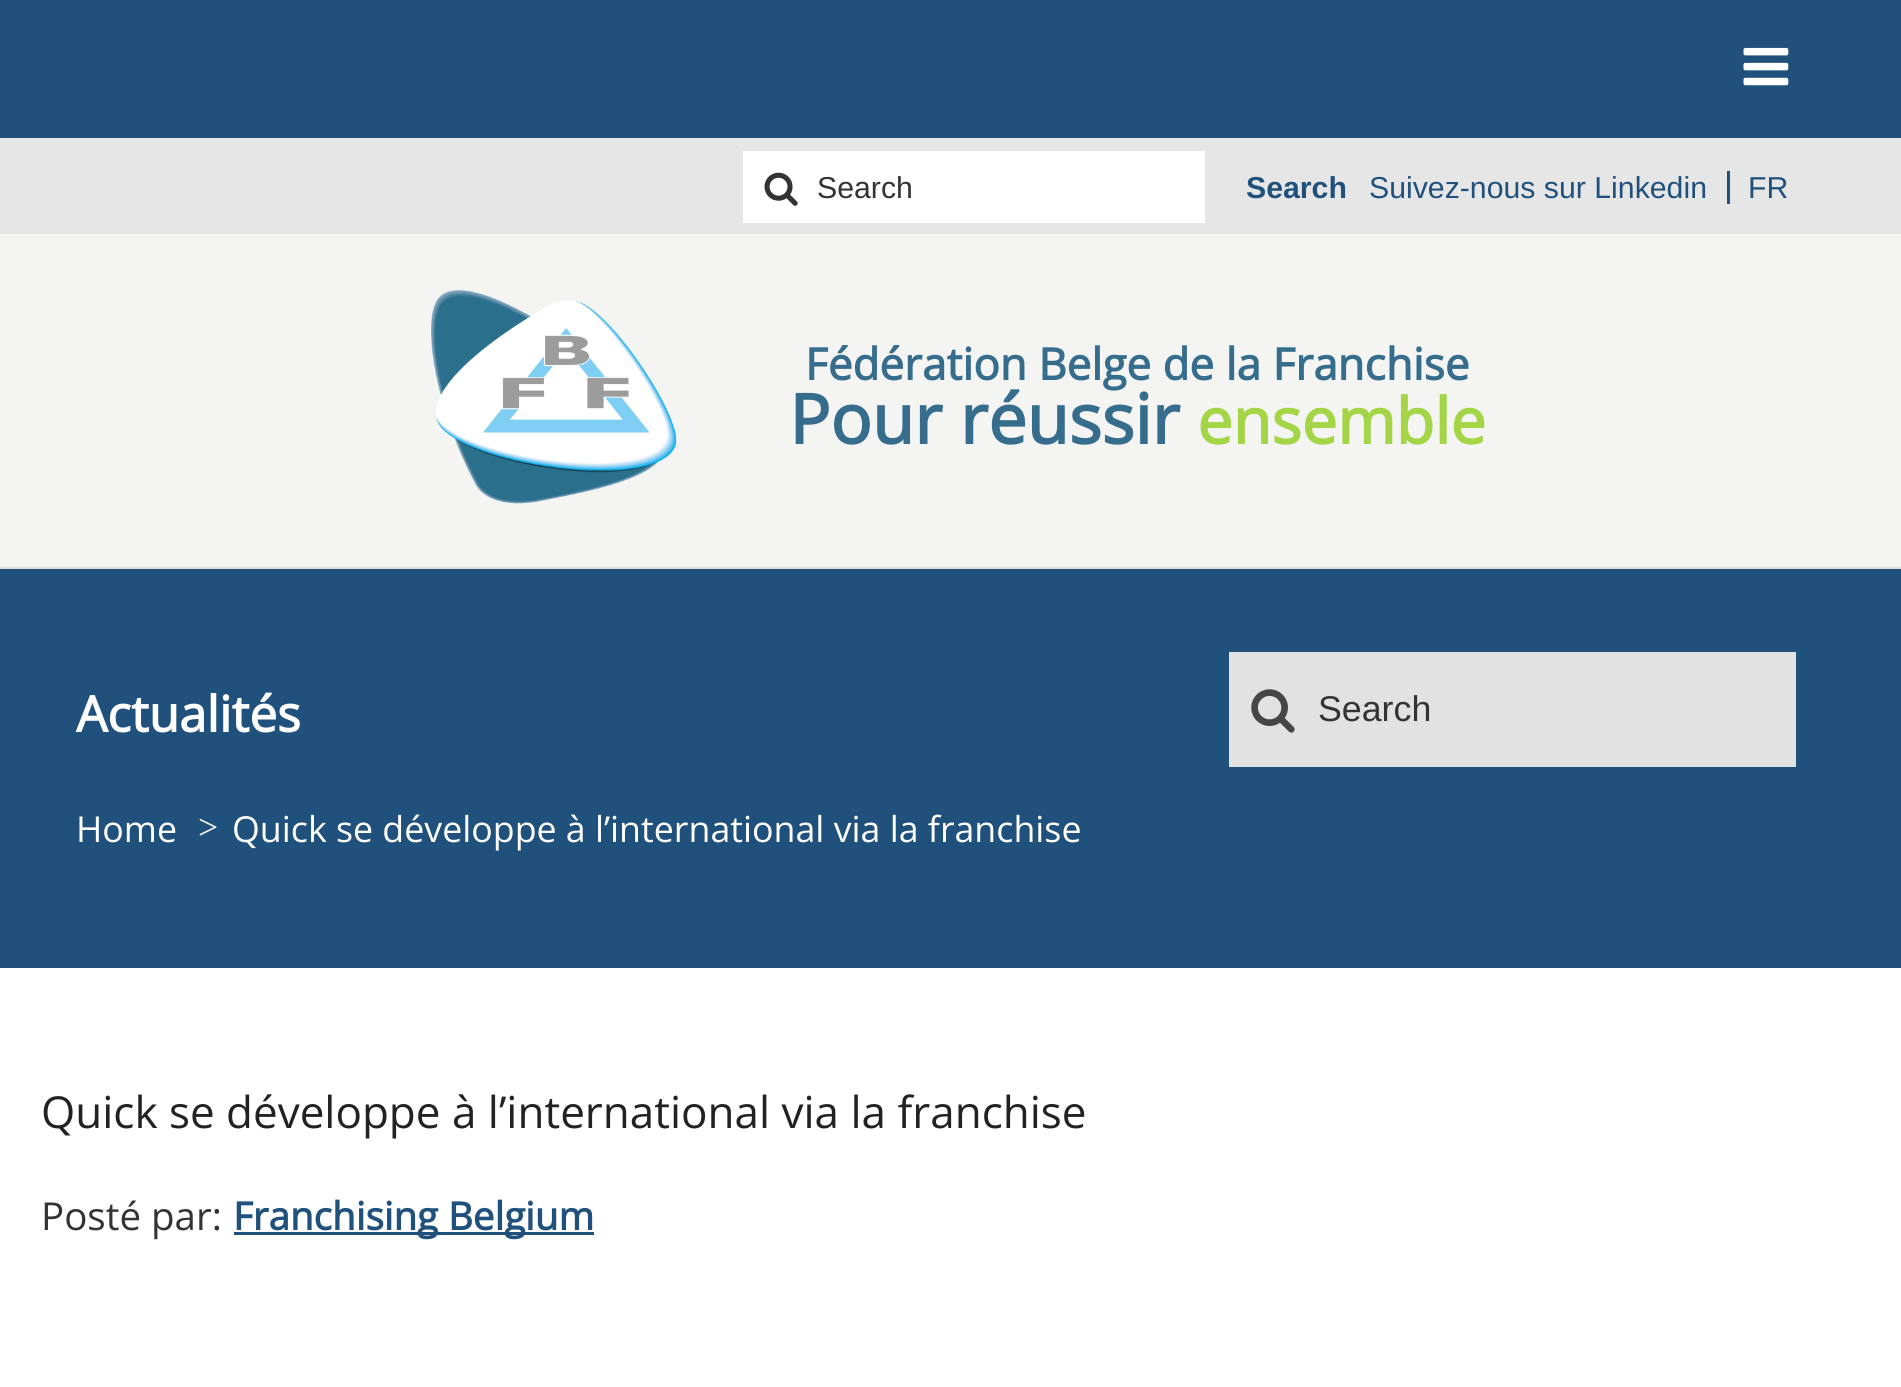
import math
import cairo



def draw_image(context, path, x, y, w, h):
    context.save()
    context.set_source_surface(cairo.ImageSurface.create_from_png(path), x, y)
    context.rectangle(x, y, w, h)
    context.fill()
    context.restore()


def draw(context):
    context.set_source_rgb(244 / 255, 244 / 255, 242 / 255)
    context.paint()
    context.set_source_rgb(32 / 255, 81 / 255, 124 / 255)
    context.rectangle(0, 0, 1901, 138)
    context.fill()
    draw_image(context, "images/1.png", 1743, 47, 46, 39)
    context.set_source_rgb(230 / 255, 230 / 255, 230 / 255)
    context.rectangle(0, 138, 1901, 96)
    context.fill()
    context.set_source_rgb(1, 1, 1)
    context.rectangle(743, 151, 462, 72)
    context.fill()
    draw_image(context, "images/2.png", 764, 172, 34, 34)
    context.set_source_rgb(32 / 255, 81 / 255, 124 / 255)
    context.rectangle(1727, 171, 3, 33)
    context.fill()
    draw_image(context, "images/3.png", 431, 290, 246, 214)
    context.set_source_rgb(221 / 255, 221 / 255, 221 / 255)
    context.rectangle(0, 567, 1901, 2)
    context.fill()
    context.set_source_rgb(1, 1, 1)
    context.rectangle(0, 968, 1901, 419)
    context.fill()
    context.set_source_rgb(32 / 255, 81 / 255, 124 / 255)
    context.rectangle(0, 569, 1901, 399)
    context.fill()
    context.set_source_rgb(227 / 255, 226 / 255, 226 / 255)
    context.rectangle(1229, 652, 567, 115)
    context.fill()
    draw_image(context, "images/4.png", 1251, 689, 44, 44)
    context.set_source_rgb(32 / 255, 81 / 255, 124 / 255)
    context.rectangle(234, 1232, 360, 3)
    context.fill()
    context.select_font_face("Liberation Sans")
    context.set_font_size(30.25)
    context.set_source_rgb(51 / 255, 51 / 255, 51 / 255)
    context.move_to(817, 198)
    context.show_text("Search")
    context.select_font_face("Liberation Sans", cairo.FontSlant.NORMAL, cairo.FontWeight.BOLD)
    context.set_source_rgb(32 / 255, 81 / 255, 124 / 255)
    context.move_to(1246, 198)
    context.show_text("Search")
    context.select_font_face("Liberation Sans")
    context.move_to(1369, 198)
    context.show_text("Suivez-nous sur Linkedin")
    context.move_to(1748, 198)
    context.show_text("FR")
    context.select_font_face("Open Sans", cairo.FontSlant.NORMAL, cairo.FontWeight.BOLD)
    context.set_font_size(44)
    context.set_source_rgb(54 / 255, 109 / 255, 141 / 255)
    context.move_to(805, 380)
    context.show_text("Fédération Belge de la Franchise")
    context.set_font_size(68.75)
    context.move_to(789, 444)
    context.show_text("Pour réussir")
    context.set_font_size(63.25)
    context.set_source_rgb(164 / 255, 213 / 255, 71 / 255)
    context.move_to(1197, 444)
    context.show_text("ensemble")
    context.set_font_size(49.5)
    context.set_source_rgb(1, 1, 1)
    context.move_to(76, 732)
    context.show_text("Actualités")
    context.select_font_face("Liberation Sans")
    context.set_font_size(35.75)
    context.set_source_rgb(51 / 255, 51 / 255, 51 / 255)
    context.move_to(1318, 721)
    context.show_text("Search")
    context.select_font_face("Open Sans")
    context.set_source_rgb(1, 1, 1)
    context.move_to(76, 842)
    context.show_text("Home")
    context.select_font_face("Liberation Serif")
    context.move_to(198, 839)
    context.show_text(">")
    context.select_font_face("Open Sans")
    context.move_to(232, 842)
    context.show_text("Quick se développe à l’international via la franchise")
    context.set_font_size(44)
    context.set_source_rgb(34 / 255, 34 / 255, 34 / 255)
    context.move_to(41, 1128)
    context.show_text("Quick se développe à l’international via la franchise")
    context.set_font_size(38.5)
    context.set_source_rgb(51 / 255, 51 / 255, 51 / 255)
    context.move_to(41, 1230)
    context.show_text("Posté par:")
    context.select_font_face("Open Sans", cairo.FontSlant.NORMAL, cairo.FontWeight.BOLD)
    context.set_source_rgb(32 / 255, 81 / 255, 124 / 255)
    context.move_to(233, 1230)
    context.show_text("Franchising Belgium")


surface = cairo.ImageSurface(cairo.Format.RGB24, 1901, 1387)
context = cairo.Context(surface)
options = cairo.FontOptions()
options.set_hint_metrics(cairo.HintMetrics.OFF)
options.set_hint_style(cairo.HintStyle.NONE)
context.set_font_options(options)
context.set_miter_limit(4)
draw(context)
surface.write_to_png("out.png")
